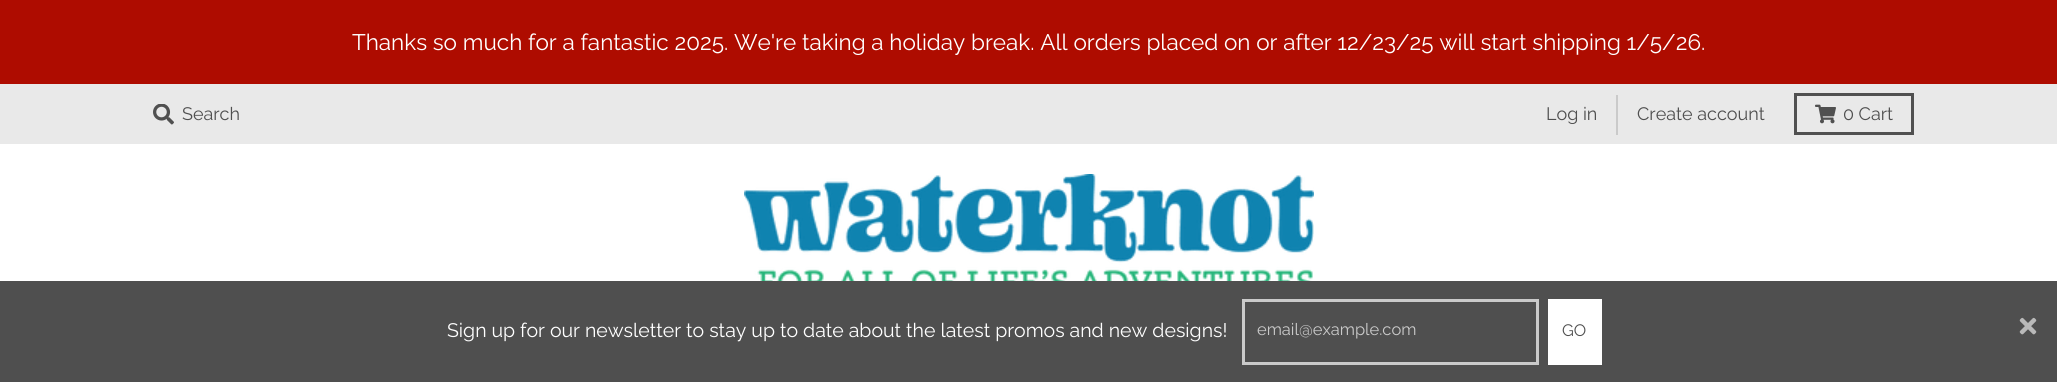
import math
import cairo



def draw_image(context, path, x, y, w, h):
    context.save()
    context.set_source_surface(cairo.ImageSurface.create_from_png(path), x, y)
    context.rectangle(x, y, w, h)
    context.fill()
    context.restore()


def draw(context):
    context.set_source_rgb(1, 1, 1)
    context.paint()
    context.set_source_rgb(174 / 255, 12 / 255, 0)
    context.rectangle(0, 0, 2057, 84)
    context.fill()
    context.set_source_rgb(79 / 255, 79 / 255, 79 / 255)
    context.rectangle(0, 281, 2057, 101)
    context.fill()
    context.rectangle(1243.5, 300.5, 294, 63)
    context.set_source_rgb(202 / 255, 202 / 255, 202 / 255)
    context.set_line_width(3)
    context.stroke()
    context.set_source_rgb(1, 1, 1)
    context.rectangle(1548, 299, 54, 66)
    context.fill()
    draw_image(context, "images/1.png", 2019, 317, 18, 18)
    context.set_source_rgb(233 / 255, 233 / 255, 233 / 255)
    context.rectangle(0, 84, 2057, 60)
    context.fill()
    draw_image(context, "images/2.png", 153, 104, 21, 21)
    context.set_source_rgb(202 / 255, 202 / 255, 202 / 255)
    context.rectangle(1616, 95, 2, 40)
    context.fill()
    context.rectangle(1795.5, 94.5, 117, 39)
    context.set_source_rgb(80 / 255, 80 / 255, 80 / 255)
    context.stroke()
    draw_image(context, "images/3.png", 1815, 104, 21, 20)
    draw_image(context, "images/4.png", 744, 174, 570, 107)
    context.select_font_face("Raleway")
    context.set_font_size(22.5)
    context.set_source_rgb(1, 1, 1)
    context.move_to(352, 50)
    context.show_text("Thanks so much for a fantastic 2025. We're taking a holiday break. All orders placed on or after 12/23/25 will start shipping 1/5/26.")
    context.set_font_size(19.5)
    context.move_to(447, 337)
    context.show_text("Sign up for our newsletter to stay up to date about the latest promos and new designs!")
    context.set_font_size(16.5)
    context.set_source_rgb(202 / 255, 202 / 255, 202 / 255)
    context.move_to(1257, 335)
    context.show_text("email@example.com")
    context.set_source_rgb(79 / 255, 79 / 255, 79 / 255)
    context.move_to(1562, 336)
    context.show_text("GO")
    context.set_font_size(18)
    context.move_to(182, 120)
    context.show_text("Search")
    context.move_to(1546, 120)
    context.show_text("Log in")
    context.move_to(1637, 120)
    context.show_text("Create account")
    context.move_to(1843, 120)
    context.show_text("0 Cart")


surface = cairo.ImageSurface(cairo.Format.RGB24, 2057, 382)
context = cairo.Context(surface)
options = cairo.FontOptions()
options.set_hint_metrics(cairo.HintMetrics.OFF)
options.set_hint_style(cairo.HintStyle.NONE)
context.set_font_options(options)
context.set_miter_limit(4)
draw(context)
surface.write_to_png("out.png")
